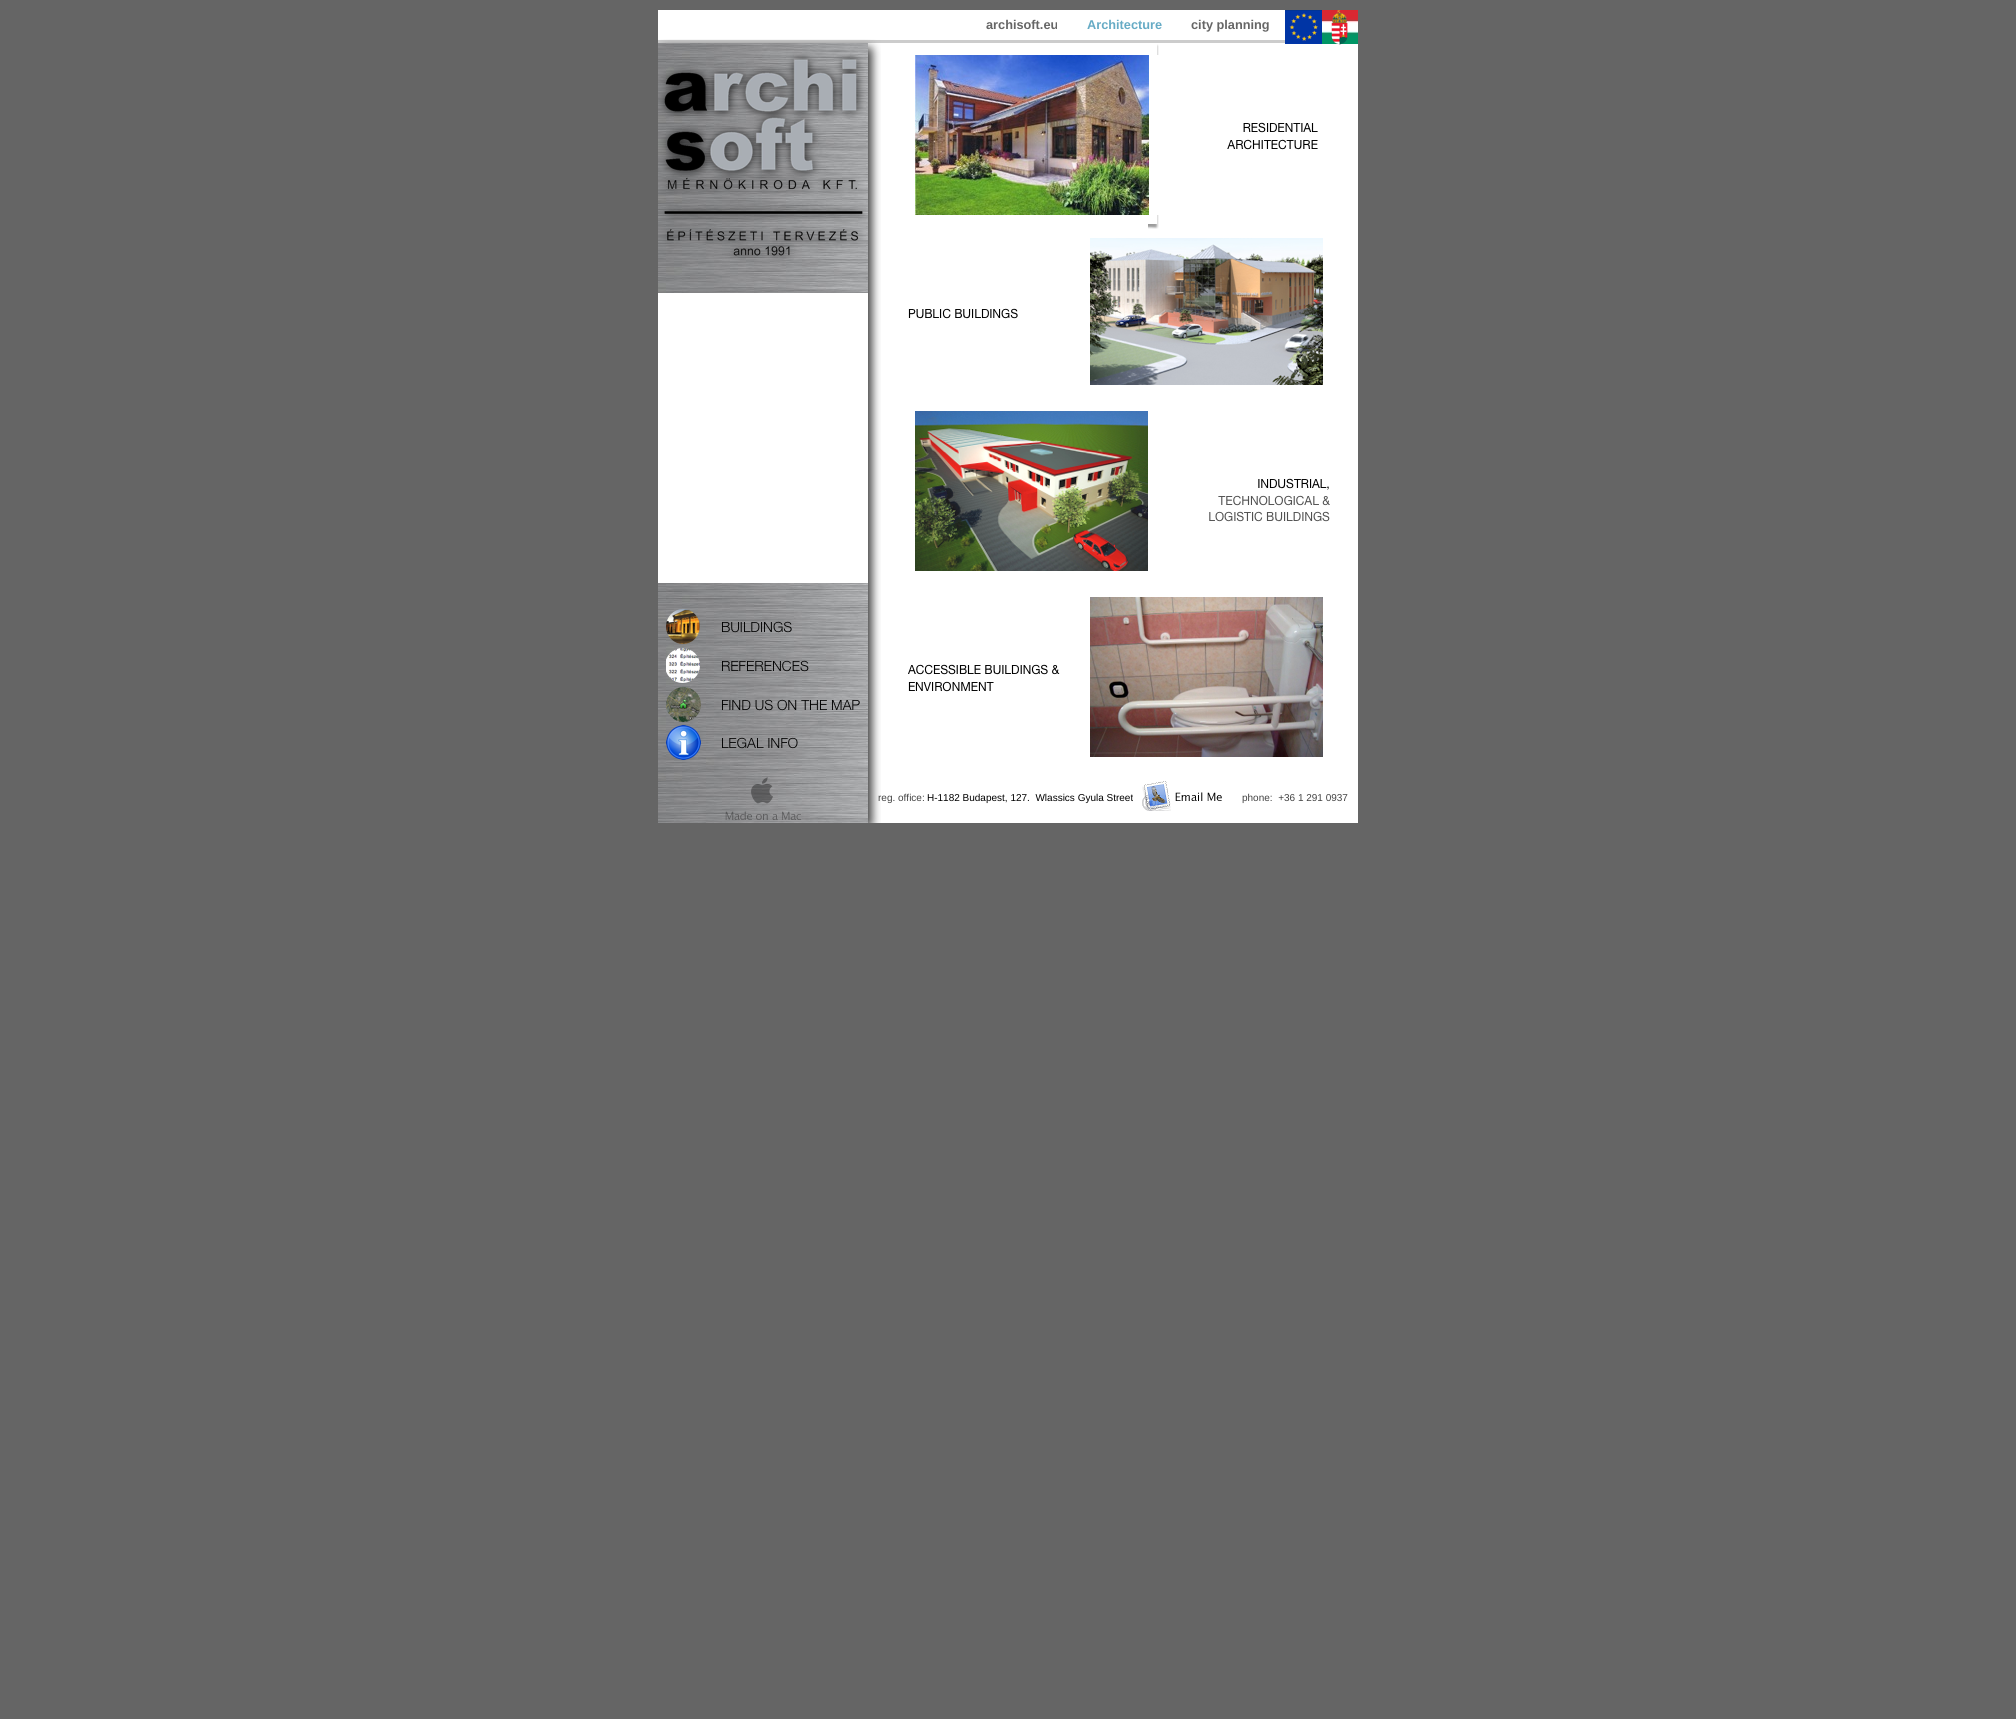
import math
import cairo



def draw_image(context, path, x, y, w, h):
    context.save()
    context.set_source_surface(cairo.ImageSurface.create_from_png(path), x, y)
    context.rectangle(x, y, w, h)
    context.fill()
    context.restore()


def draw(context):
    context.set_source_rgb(101 / 255, 101 / 255, 101 / 255)
    context.paint()
    context.set_source_rgb(1, 1, 1)
    context.rectangle(658, 10, 700, 813)
    context.fill()
    draw_image(context, "images/1.png", 1285, 10, 37, 34)
    draw_image(context, "images/2.png", 1322, 10, 36, 34)
    context.set_source_rgb(204 / 255, 204 / 255, 204 / 255)
    context.rectangle(658, 40, 627, 3)
    context.fill()
    draw_image(context, "images/3.png", 1331, 10, 17, 35)
    draw_image(context, "images/4.png", 658, 43, 210, 780)
    draw_image(context, "images/5.png", 658, 39, 223, 784)
    draw_image(context, "images/6.png", 915, 55, 234, 160)
    draw_image(context, "images/7.png", 1157, 44, 2, 11)
    draw_image(context, "images/8.png", 1148, 215, 11, 14)
    draw_image(context, "images/9.png", 658, 52, 210, 210)
    draw_image(context, "images/10.png", 1243, 122, 75, 11)
    draw_image(context, "images/11.png", 1227, 139, 91, 11)
    context.set_source_rgb(1, 1, 1)
    context.rectangle(658, 293, 210, 290)
    context.fill()
    draw_image(context, "images/12.png", 908, 308, 110, 11)
    draw_image(context, "images/13.png", 1090, 238, 233, 147)
    draw_image(context, "images/14.png", 915, 411, 233, 160)
    draw_image(context, "images/15.png", 1258, 478, 71, 12)
    draw_image(context, "images/16.png", 1209, 495, 121, 27)
    draw_image(context, "images/17.png", 666, 609, 34, 35)
    draw_image(context, "images/18.png", 722, 621, 70, 12)
    draw_image(context, "images/19.png", 1090, 597, 233, 160)
    draw_image(context, "images/20.png", 666, 648, 34, 35)
    draw_image(context, "images/21.png", 722, 660, 87, 12)
    draw_image(context, "images/22.png", 908, 664, 152, 11)
    draw_image(context, "images/23.png", 908, 681, 86, 11)
    draw_image(context, "images/24.png", 666, 687, 35, 35)
    draw_image(context, "images/25.png", 722, 699, 138, 12)
    draw_image(context, "images/26.png", 666, 725, 35, 35)
    draw_image(context, "images/27.png", 722, 737, 76, 12)
    draw_image(context, "images/28.png", 725, 777, 76, 43)
    draw_image(context, "images/29.png", 1142, 781, 80, 30)
    context.select_font_face("Liberation Sans", cairo.FontSlant.NORMAL, cairo.FontWeight.BOLD)
    context.set_font_size(12.75)
    context.set_source_rgb(102 / 255, 102 / 255, 102 / 255)
    context.move_to(986, 29)
    context.show_text("archisoft.eu")
    context.set_source_rgb(102 / 255, 171 / 255, 197 / 255)
    context.move_to(1087, 29)
    context.show_text("Architecture")
    context.set_source_rgb(102 / 255, 102 / 255, 102 / 255)
    context.move_to(1191, 29)
    context.show_text("city planning")
    context.select_font_face("Liberation Sans")
    context.set_font_size(10)
    context.set_source_rgb(66 / 255, 66 / 255, 66 / 255)
    context.move_to(878, 801)
    context.show_text("reg. office:")
    context.set_source_rgb(0, 0, 0)
    context.move_to(927, 801)
    context.show_text("H-1182 Budapest, 127.  Wlassics Gyula Street")
    context.set_source_rgb(66 / 255, 66 / 255, 66 / 255)
    context.move_to(1242, 801)
    context.show_text("phone:  +36 1 291 0937")


surface = cairo.ImageSurface(cairo.Format.RGB24, 2016, 1719)
context = cairo.Context(surface)
options = cairo.FontOptions()
options.set_hint_metrics(cairo.HintMetrics.OFF)
options.set_hint_style(cairo.HintStyle.NONE)
context.set_font_options(options)
context.set_miter_limit(4)
draw(context)
surface.write_to_png("out.png")
